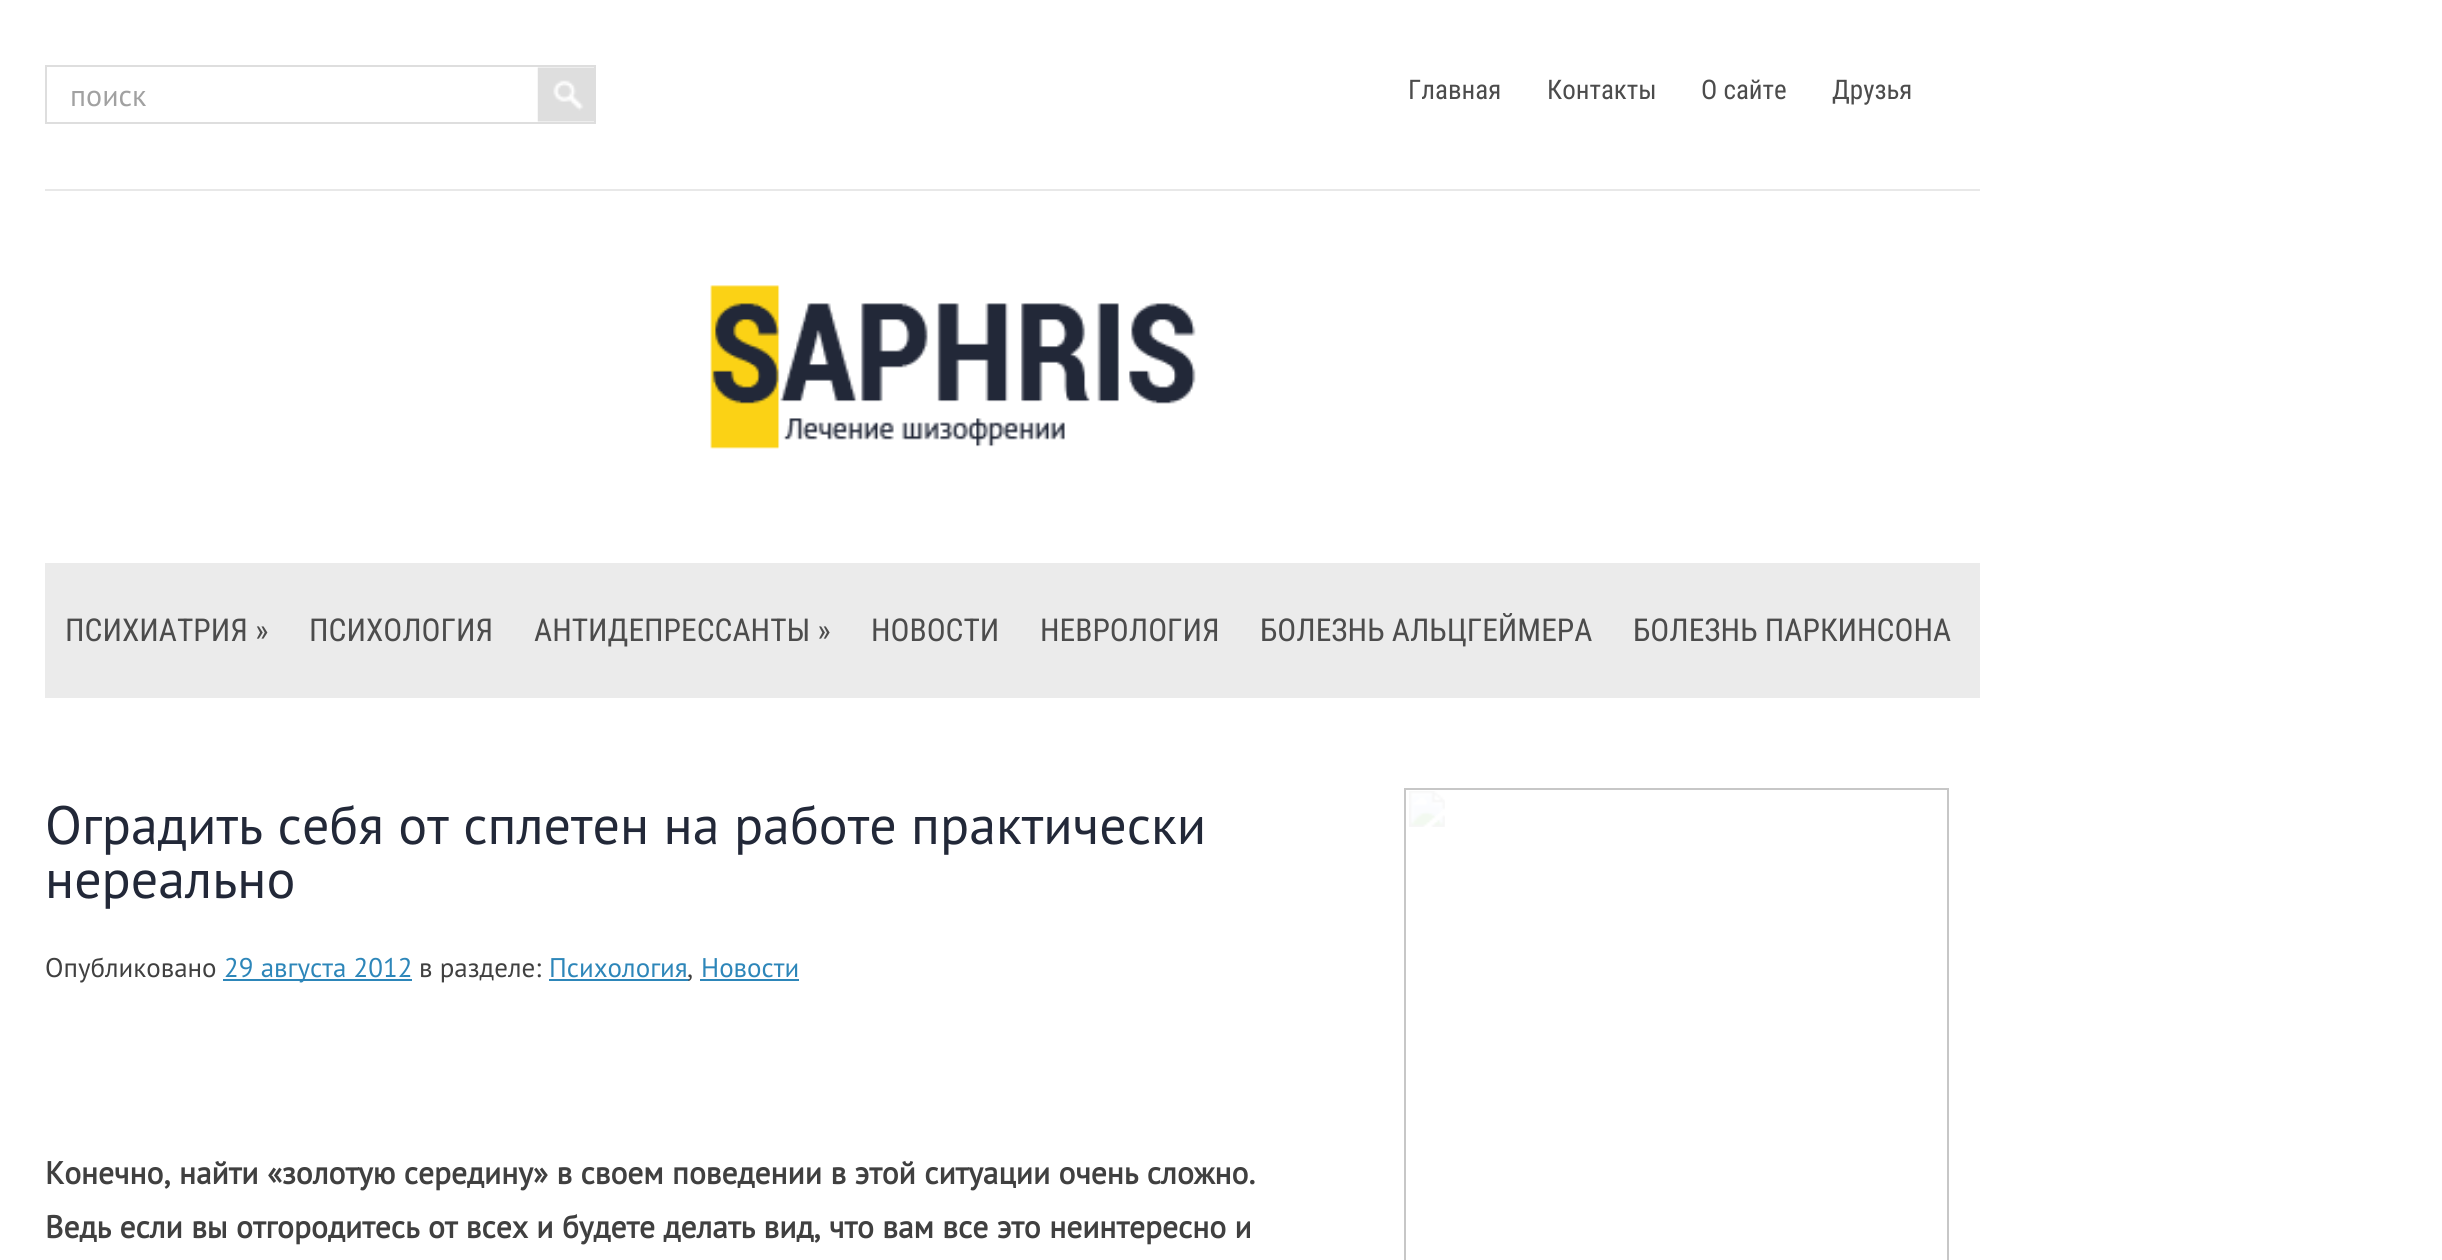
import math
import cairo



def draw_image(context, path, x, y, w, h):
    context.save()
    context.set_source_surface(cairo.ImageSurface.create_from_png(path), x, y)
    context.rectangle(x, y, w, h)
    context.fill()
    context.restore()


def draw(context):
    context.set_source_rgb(1, 1, 1)
    context.paint()
    context.rectangle(46, 66, 549, 57)
    context.set_source_rgb(222 / 255, 222 / 255, 222 / 255)
    context.stroke()
    draw_image(context, "images/1.png", 537, 67, 57, 55)
    context.set_source_rgb(232 / 255, 232 / 255, 232 / 255)
    context.rectangle(45, 189, 1935, 2)
    context.fill()
    draw_image(context, "images/2.png", 710, 285, 486, 164)
    context.set_source_rgb(235 / 255, 235 / 255, 235 / 255)
    context.rectangle(45, 563, 1935, 135)
    context.fill()
    context.set_source_rgb(45 / 255, 134 / 255, 185 / 255)
    context.rectangle(223, 979, 189, 2)
    context.fill()
    context.rectangle(549, 979, 140, 2)
    context.fill()
    context.rectangle(700, 979, 99, 2)
    context.fill()
    context.rectangle(1405, 789, 543, 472)
    context.set_source_rgb(199 / 255, 199 / 255, 199 / 255)
    context.stroke()
    draw_image(context, "images/3.png", 1409, 791, 36, 36)
    context.select_font_face("PT Sans")
    context.set_font_size(30)
    context.set_source_rgb(161 / 255, 161 / 255, 161 / 255)
    context.move_to(70, 106)
    context.show_text("поиск")
    context.select_font_face("Roboto Condensed")
    context.set_font_size(27)
    context.set_source_rgb(76 / 255, 76 / 255, 76 / 255)
    context.move_to(1408, 99)
    context.show_text("Главная")
    context.move_to(1547, 99)
    context.show_text("Контакты")
    context.move_to(1701, 99)
    context.show_text("О сайте")
    context.move_to(1832, 99)
    context.show_text("Друзья")
    context.set_font_size(31.5)
    context.move_to(65, 641)
    context.show_text("ПСИХИАТРИЯ »")
    context.move_to(309, 641)
    context.show_text("ПСИХОЛОГИЯ")
    context.move_to(534, 641)
    context.show_text("АНТИДЕПРЕССАНТЫ »")
    context.move_to(871, 641)
    context.show_text("НОВОСТИ")
    context.move_to(1040, 641)
    context.show_text("НЕВРОЛОГИЯ")
    context.move_to(1260, 641)
    context.show_text("БОЛЕЗНЬ АЛЬЦГЕЙМЕРА")
    context.move_to(1633, 641)
    context.show_text("БОЛЕЗНЬ ПАРКИНСОНА")
    context.select_font_face("PT Sans")
    context.set_font_size(54)
    context.set_source_rgb(34 / 255, 40 / 255, 56 / 255)
    context.move_to(45, 844)
    context.show_text("Оградить себя от сплетен на работе практически")
    context.move_to(45, 898)
    context.show_text("нереально")
    context.set_font_size(27)
    context.set_source_rgb(64 / 255, 64 / 255, 64 / 255)
    context.move_to(45, 977)
    context.show_text("Опубликовано")
    context.set_source_rgb(45 / 255, 134 / 255, 185 / 255)
    context.move_to(224, 977)
    context.show_text("29 августа 2012")
    context.set_source_rgb(64 / 255, 64 / 255, 64 / 255)
    context.move_to(419, 977)
    context.show_text("в разделе:")
    context.set_source_rgb(45 / 255, 134 / 255, 185 / 255)
    context.move_to(549, 977)
    context.show_text("Психология")
    context.set_source_rgb(64 / 255, 64 / 255, 64 / 255)
    context.move_to(687, 977)
    context.show_text(",")
    context.set_source_rgb(45 / 255, 134 / 255, 185 / 255)
    context.move_to(701, 977)
    context.show_text("Новости")
    context.select_font_face("PT Sans", cairo.FontSlant.NORMAL, cairo.FontWeight.BOLD)
    context.set_font_size(31.5)
    context.set_source_rgb(64 / 255, 64 / 255, 64 / 255)
    context.move_to(45, 1184)
    context.show_text("Конечно, найти «золотую середину» в своем поведении в этой ситуации очень сложно.")
    context.move_to(45, 1238)
    context.show_text("Ведь если вы отгородитесь от всех и будете делать вид, что вам все это неинтересно и")


surface = cairo.ImageSurface(cairo.Format.RGB24, 2442, 1260)
context = cairo.Context(surface)
options = cairo.FontOptions()
options.set_hint_metrics(cairo.HintMetrics.OFF)
options.set_hint_style(cairo.HintStyle.NONE)
context.set_font_options(options)
context.set_miter_limit(4)
draw(context)
surface.write_to_png("out.png")
